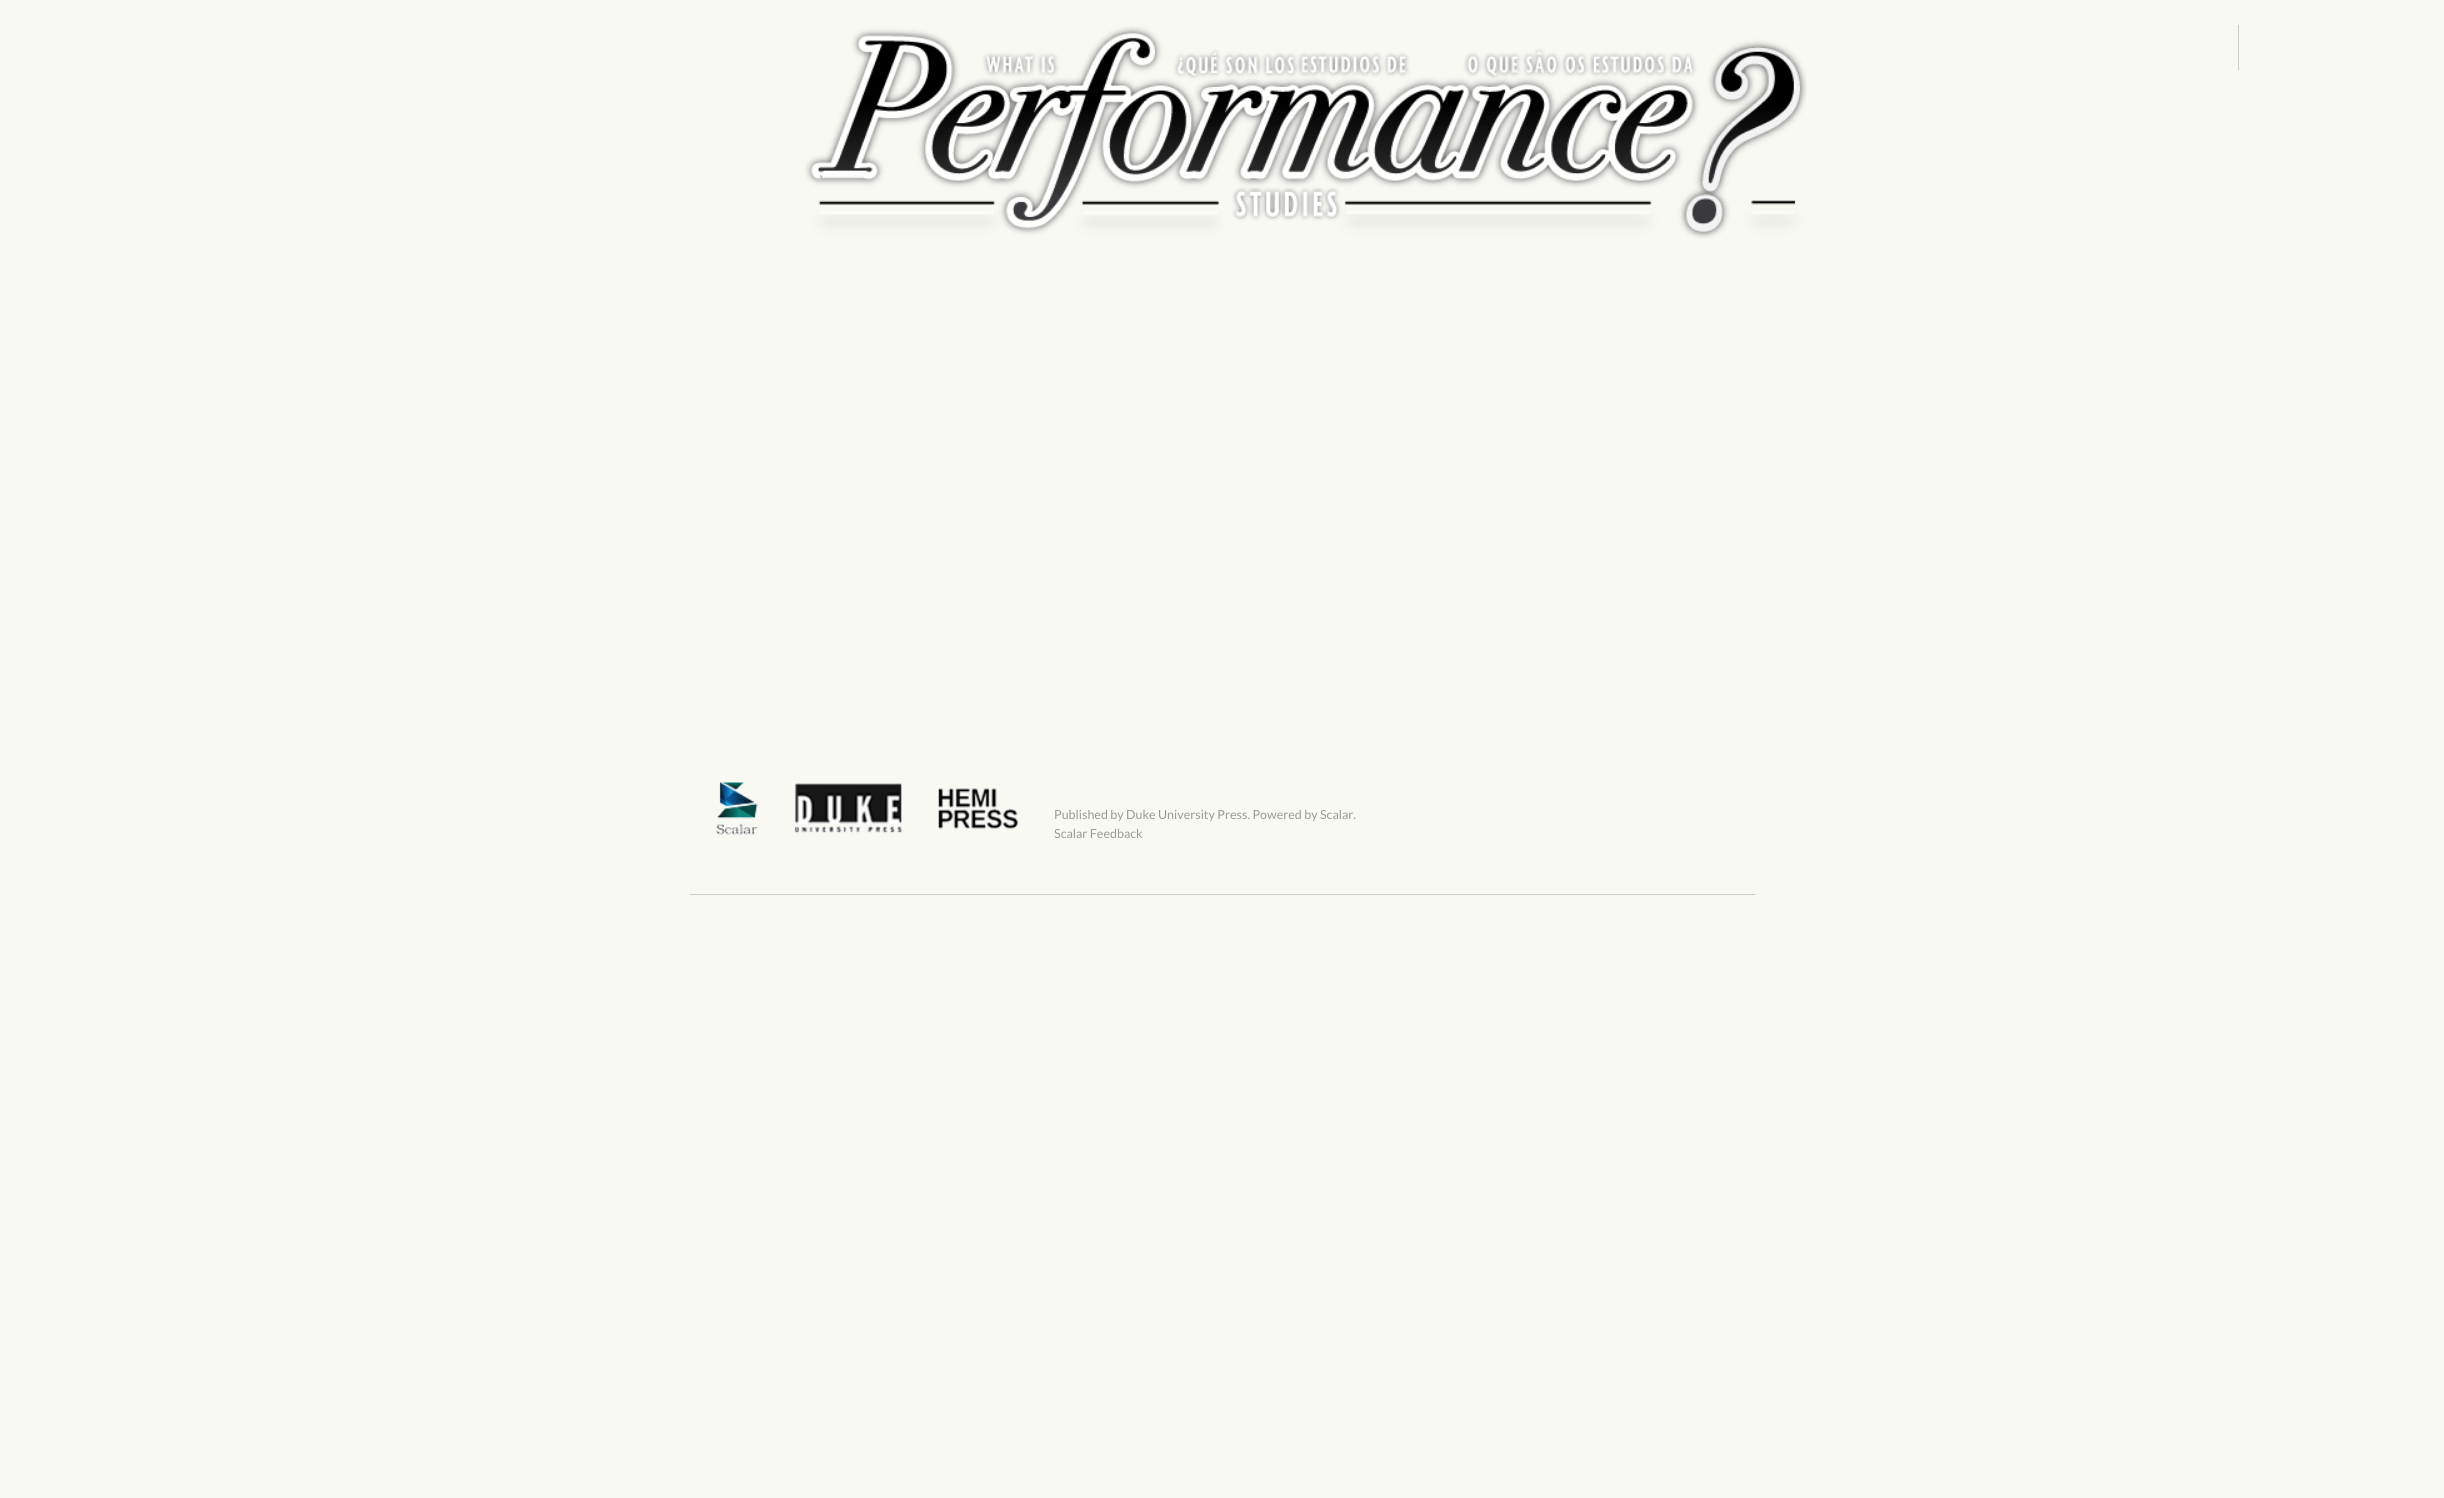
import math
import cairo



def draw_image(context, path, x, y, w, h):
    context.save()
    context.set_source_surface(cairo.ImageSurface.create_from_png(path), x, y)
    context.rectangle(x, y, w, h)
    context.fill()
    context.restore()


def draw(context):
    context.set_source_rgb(249 / 255, 249 / 255, 244 / 255)
    context.paint()
    draw_image(context, "images/1.png", 805, 26, 1002, 213)
    context.set_source_rgb(204 / 255, 204 / 255, 204 / 255)
    context.rectangle(2238, 25, 1, 45)
    context.fill()
    draw_image(context, "images/2.png", 716, 782, 302, 53)
    context.rectangle(690, 894, 1065, 1)
    context.fill()
    context.select_font_face("Lato")
    context.set_font_size(12.5)
    context.set_source_rgb(153 / 255, 153 / 255, 153 / 255)
    context.move_to(1054, 819)
    context.show_text("Published by Duke University Press. Powered by Scalar.")
    context.move_to(1054, 838)
    context.show_text("Scalar Feedback")


surface = cairo.ImageSurface(cairo.Format.RGB24, 2444, 1498)
context = cairo.Context(surface)
options = cairo.FontOptions()
options.set_hint_metrics(cairo.HintMetrics.OFF)
options.set_hint_style(cairo.HintStyle.NONE)
context.set_font_options(options)
context.set_miter_limit(4)
draw(context)
surface.write_to_png("out.png")
